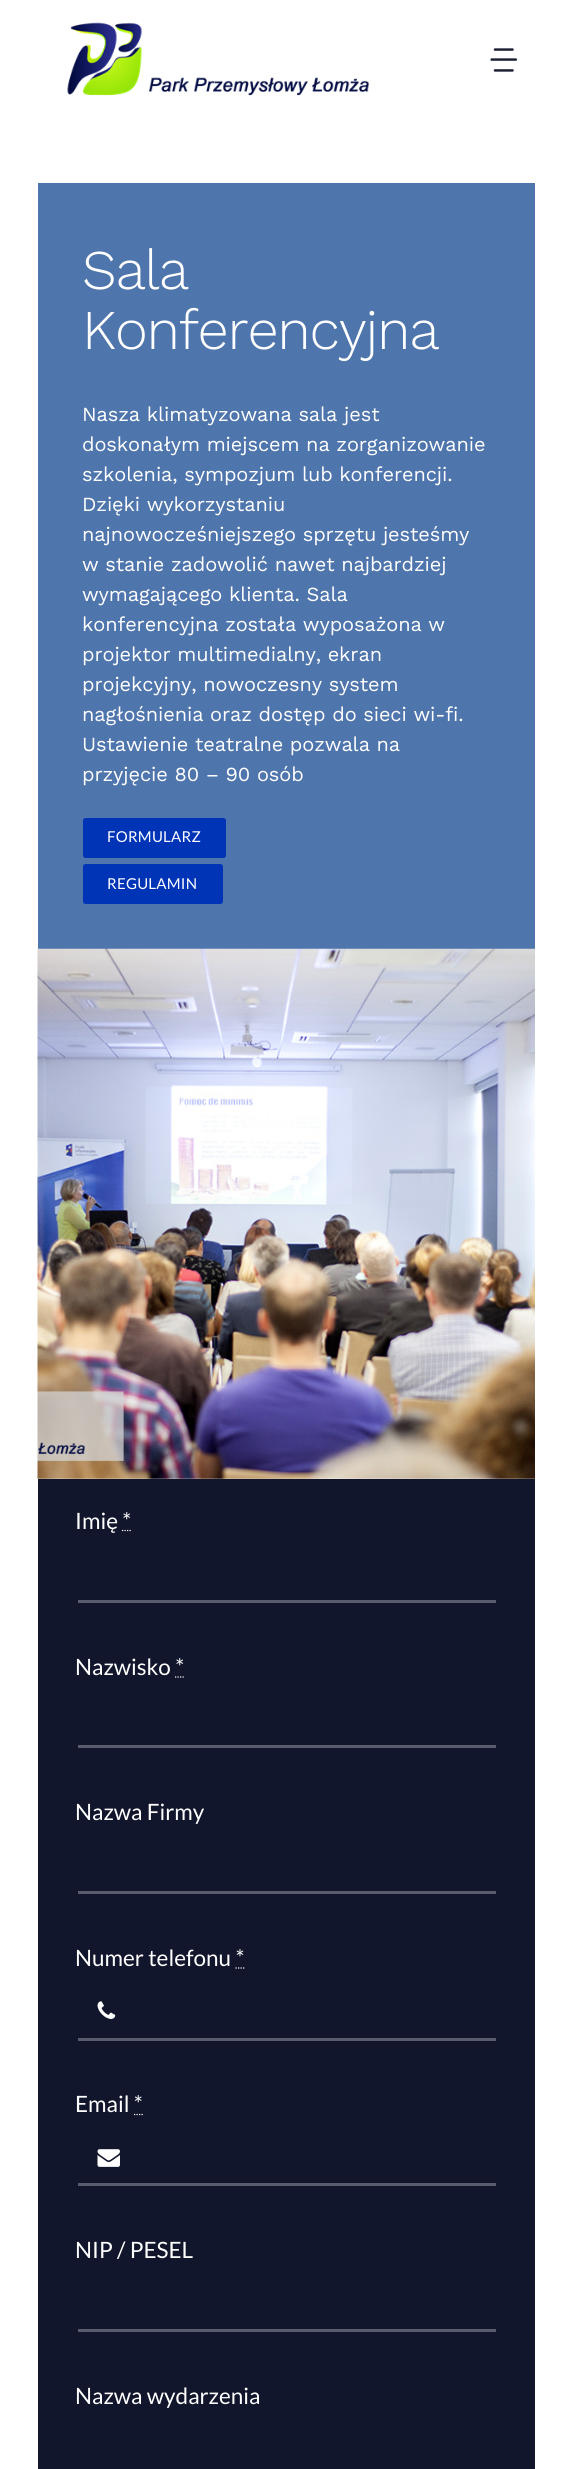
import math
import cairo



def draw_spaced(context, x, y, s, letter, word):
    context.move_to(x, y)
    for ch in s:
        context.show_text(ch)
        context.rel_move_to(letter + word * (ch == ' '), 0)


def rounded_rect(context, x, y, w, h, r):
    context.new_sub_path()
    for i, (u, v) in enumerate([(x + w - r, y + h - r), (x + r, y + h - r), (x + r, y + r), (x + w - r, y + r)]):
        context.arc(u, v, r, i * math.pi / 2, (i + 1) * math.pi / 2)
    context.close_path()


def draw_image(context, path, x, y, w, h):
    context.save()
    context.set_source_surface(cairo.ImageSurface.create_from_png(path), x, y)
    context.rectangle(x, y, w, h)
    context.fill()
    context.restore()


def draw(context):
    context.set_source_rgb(1, 1, 1)
    context.paint()
    draw_image(context, "images/1.png", 67, 22, 303, 74)
    draw_image(context, "images/2.png", 490, 48, 28, 24)
    context.set_source_rgb(79 / 255, 117 / 255, 173 / 255)
    context.rectangle(38, 183, 497, 766)
    context.fill()
    context.set_source_rgb(0, 52 / 255, 183 / 255)
    rounded_rect(context, 83, 818, 143, 40, 2.5)
    context.fill()
    rounded_rect(context, 83, 864, 140, 40, 2.5)
    context.fill()
    draw_image(context, "images/3.png", 37, 948, 498, 531)
    context.set_source_rgb(18 / 255, 22 / 255, 45 / 255)
    context.rectangle(38, 1479, 497, 990)
    context.fill()
    context.new_path()
    context.move_to(122, 1530.5)
    context.line_to(131, 1530.5)
    context.set_source_rgb(1, 1, 1)
    context.set_line_width(1.2)
    context.set_dash([1.25, 1.25])
    context.stroke()
    context.set_source_rgb(89 / 255, 92 / 255, 108 / 255)
    context.rectangle(78, 1600, 418, 3)
    context.fill()
    context.new_path()
    context.move_to(175, 1677)
    context.line_to(184, 1677)
    context.set_source_rgb(1, 1, 1)
    context.stroke()
    context.set_source_rgb(89 / 255, 92 / 255, 108 / 255)
    context.rectangle(78, 1745, 418, 3)
    context.fill()
    context.rectangle(78, 1891, 418, 3)
    context.fill()
    context.new_path()
    context.move_to(235.5, 1968)
    context.line_to(244.5, 1968)
    context.set_source_rgb(1, 1, 1)
    context.stroke()
    draw_image(context, "images/4.png", 97, 2001, 19, 18)
    context.set_source_rgb(89 / 255, 92 / 255, 108 / 255)
    context.rectangle(78, 2038, 418, 3)
    context.fill()
    context.new_path()
    context.move_to(134, 2114.5)
    context.line_to(143, 2114.5)
    context.set_source_rgb(1, 1, 1)
    context.stroke()
    draw_image(context, "images/5.png", 97, 2149, 23, 18)
    context.set_source_rgb(89 / 255, 92 / 255, 108 / 255)
    context.rectangle(78, 2183, 418, 3)
    context.fill()
    context.rectangle(78, 2329, 418, 3)
    context.fill()
    context.select_font_face("Work Sans Light")
    context.set_font_size(56)
    context.set_source_rgb(1, 1, 1)
    draw_spaced(context, 82, 289, "Sala", -1.25, 0)
    draw_spaced(context, 82, 349, "Konferencyjna", -1.25, 0)
    context.select_font_face("Work Sans")
    context.set_font_size(20)
    draw_spaced(context, 82, 421, "Nasza klimatyzowana sala jest", -0.1, 0)
    draw_spaced(context, 82, 451, "doskonałym miejscem na zorganizowanie", -0.1, 0)
    draw_spaced(context, 82, 481, "szkolenia, sympozjum lub konferencji.", -0.1, 0)
    draw_spaced(context, 82, 511, "Dzięki wykorzystaniu", -0.1, 0)
    draw_spaced(context, 82, 541, "najnowocześniejszego sprzętu jesteśmy", -0.1, 0)
    draw_spaced(context, 82, 571, "w stanie zadowolić nawet najbardziej", -0.1, 0)
    draw_spaced(context, 82, 601, "wymagającego klienta. Sala", -0.1, 0)
    draw_spaced(context, 82, 631, "konferencyjna została wyposażona w", -0.1, 0)
    draw_spaced(context, 82, 661, "projektor multimedialny, ekran", -0.1, 0)
    draw_spaced(context, 82, 691, "projekcyjny, nowoczesny system", -0.1, 0)
    draw_spaced(context, 82, 721, "nagłośnienia oraz dostęp do sieci wi-fi.", -0.1, 0)
    draw_spaced(context, 82, 751, "Ustawienie teatralne pozwala na", -0.1, 0)
    draw_spaced(context, 82, 781, "przyjęcie 80 – 90 osób", -0.1, 0)
    context.select_font_face("Lato")
    context.set_font_size(15)
    draw_spaced(context, 107, 842, "FORMULARZ", 0.25, 0)
    draw_spaced(context, 107, 889, "REGULAMIN", 0.25, 0)
    context.set_font_size(22.5)
    context.move_to(75, 1529)
    context.show_text("Imię *")
    context.move_to(75, 1675)
    context.show_text("Nazwisko *")
    context.move_to(75, 1820)
    context.show_text("Nazwa Firmy")
    context.move_to(75, 1966)
    context.show_text("Numer telefonu *")
    context.move_to(75, 2112)
    context.show_text("Email *")
    context.move_to(75, 2258)
    context.show_text("NIP / PESEL")
    context.move_to(75, 2404)
    context.show_text("Nazwa wydarzenia")


surface = cairo.ImageSurface(cairo.Format.RGB24, 572, 2469)
context = cairo.Context(surface)
options = cairo.FontOptions()
options.set_hint_metrics(cairo.HintMetrics.OFF)
options.set_hint_style(cairo.HintStyle.NONE)
context.set_font_options(options)
context.set_miter_limit(4)
draw(context)
surface.write_to_png("out.png")
